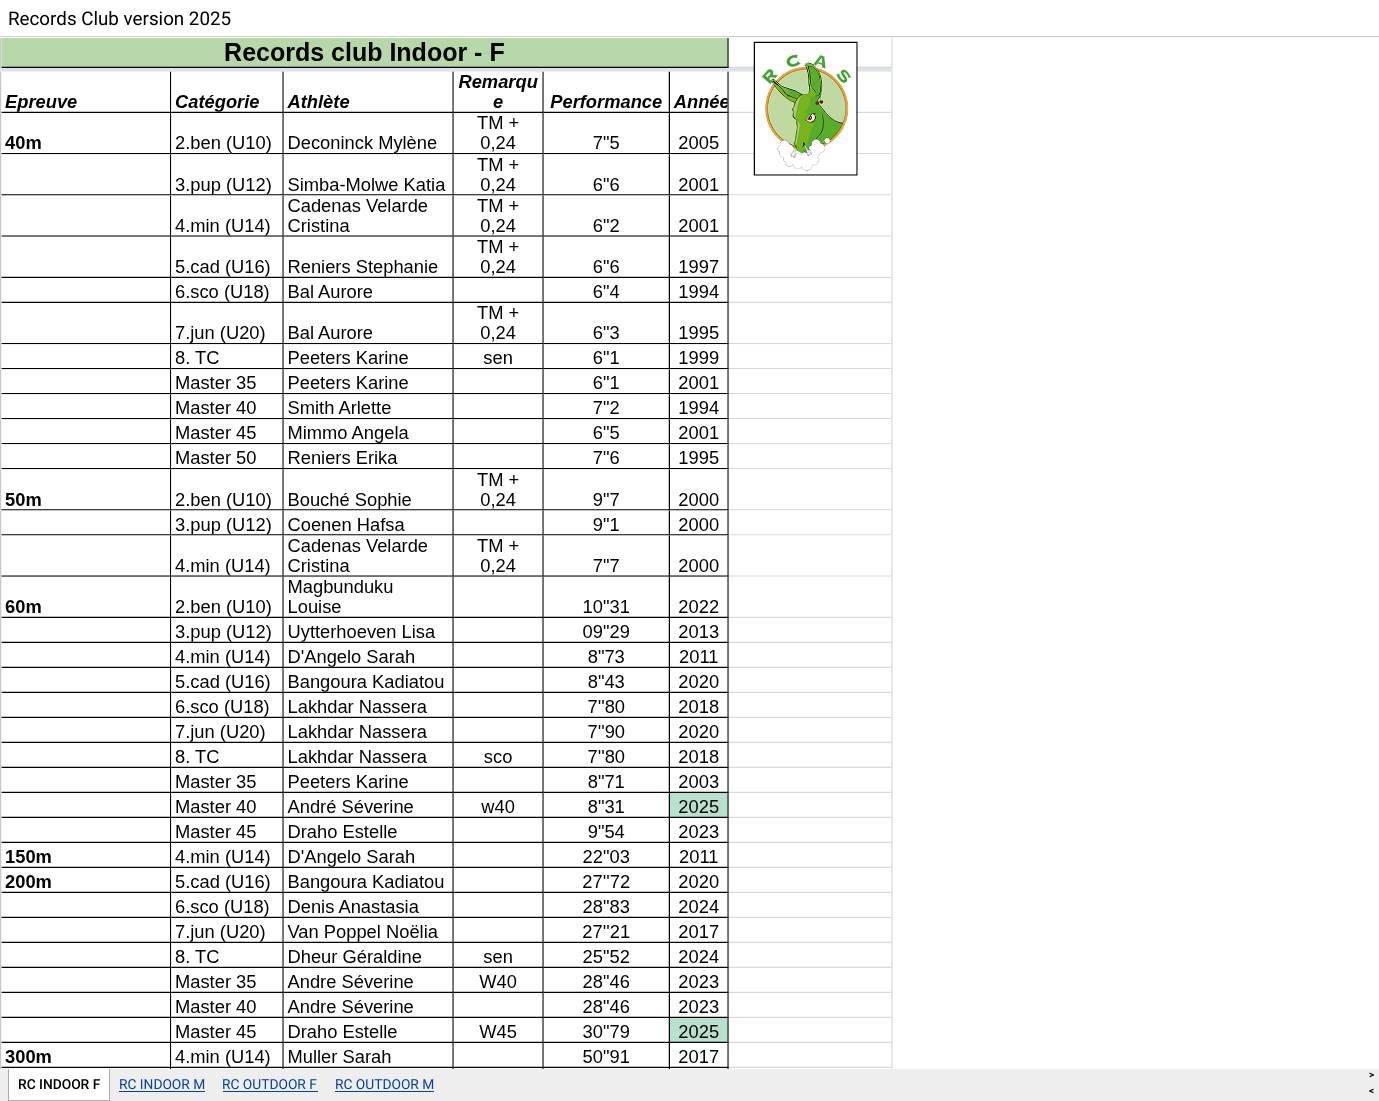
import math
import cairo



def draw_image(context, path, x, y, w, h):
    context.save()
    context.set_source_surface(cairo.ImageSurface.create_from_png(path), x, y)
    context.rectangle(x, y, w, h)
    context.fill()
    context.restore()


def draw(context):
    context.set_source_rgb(1, 1, 1)
    context.paint()
    context.set_source_rgb(204 / 255, 204 / 255, 204 / 255)
    context.rectangle(0, 36, 1379, 1)
    context.fill()
    draw_image(context, "images/1.png", 0, 38, 893, 1031)
    context.set_source_rgb(238 / 255, 238 / 255, 238 / 255)
    context.rectangle(0, 1069, 1379, 32)
    context.fill()
    context.set_source_rgb(1, 1, 1)
    context.rectangle(9, 1069, 100, 31)
    context.fill()
    context.set_source_rgb(171 / 255, 171 / 255, 171 / 255)
    context.rectangle(109, 1069, 1, 32)
    context.fill()
    context.rectangle(8, 1100, 102, 1)
    context.fill()
    context.rectangle(8, 1069, 1, 32)
    context.fill()
    context.set_source_rgb(4 / 255, 64 / 255, 159 / 255)
    context.rectangle(119, 1091, 86, 1)
    context.fill()
    context.rectangle(223, 1091, 95, 1)
    context.fill()
    context.rectangle(335, 1091, 99, 1)
    context.fill()
    context.select_font_face("Roboto")
    context.set_font_size(18.75)
    context.set_source_rgb(0, 0, 0)
    context.move_to(8, 25)
    context.show_text("Records Club version 2025")
    context.select_font_face("Roboto Medium")
    context.set_font_size(13.75)
    context.move_to(18, 1089)
    context.show_text("RC INDOOR F")
    context.select_font_face("Roboto")
    context.set_source_rgb(4 / 255, 64 / 255, 159 / 255)
    context.move_to(119, 1089)
    context.show_text("RC INDOOR M")
    context.move_to(222, 1089)
    context.show_text("RC OUTDOOR F")
    context.move_to(335, 1089)
    context.show_text("RC OUTDOOR M")
    context.select_font_face("Roboto", cairo.FontSlant.NORMAL, cairo.FontWeight.BOLD)
    context.set_font_size(10)
    context.set_source_rgb(0, 0, 0)
    context.move_to(1369, 1078)
    context.show_text(">")
    context.move_to(1369, 1094)
    context.show_text("<")


surface = cairo.ImageSurface(cairo.Format.RGB24, 1379, 1101)
context = cairo.Context(surface)
options = cairo.FontOptions()
options.set_hint_metrics(cairo.HintMetrics.OFF)
options.set_hint_style(cairo.HintStyle.NONE)
context.set_font_options(options)
context.set_miter_limit(4)
draw(context)
surface.write_to_png("out.png")
